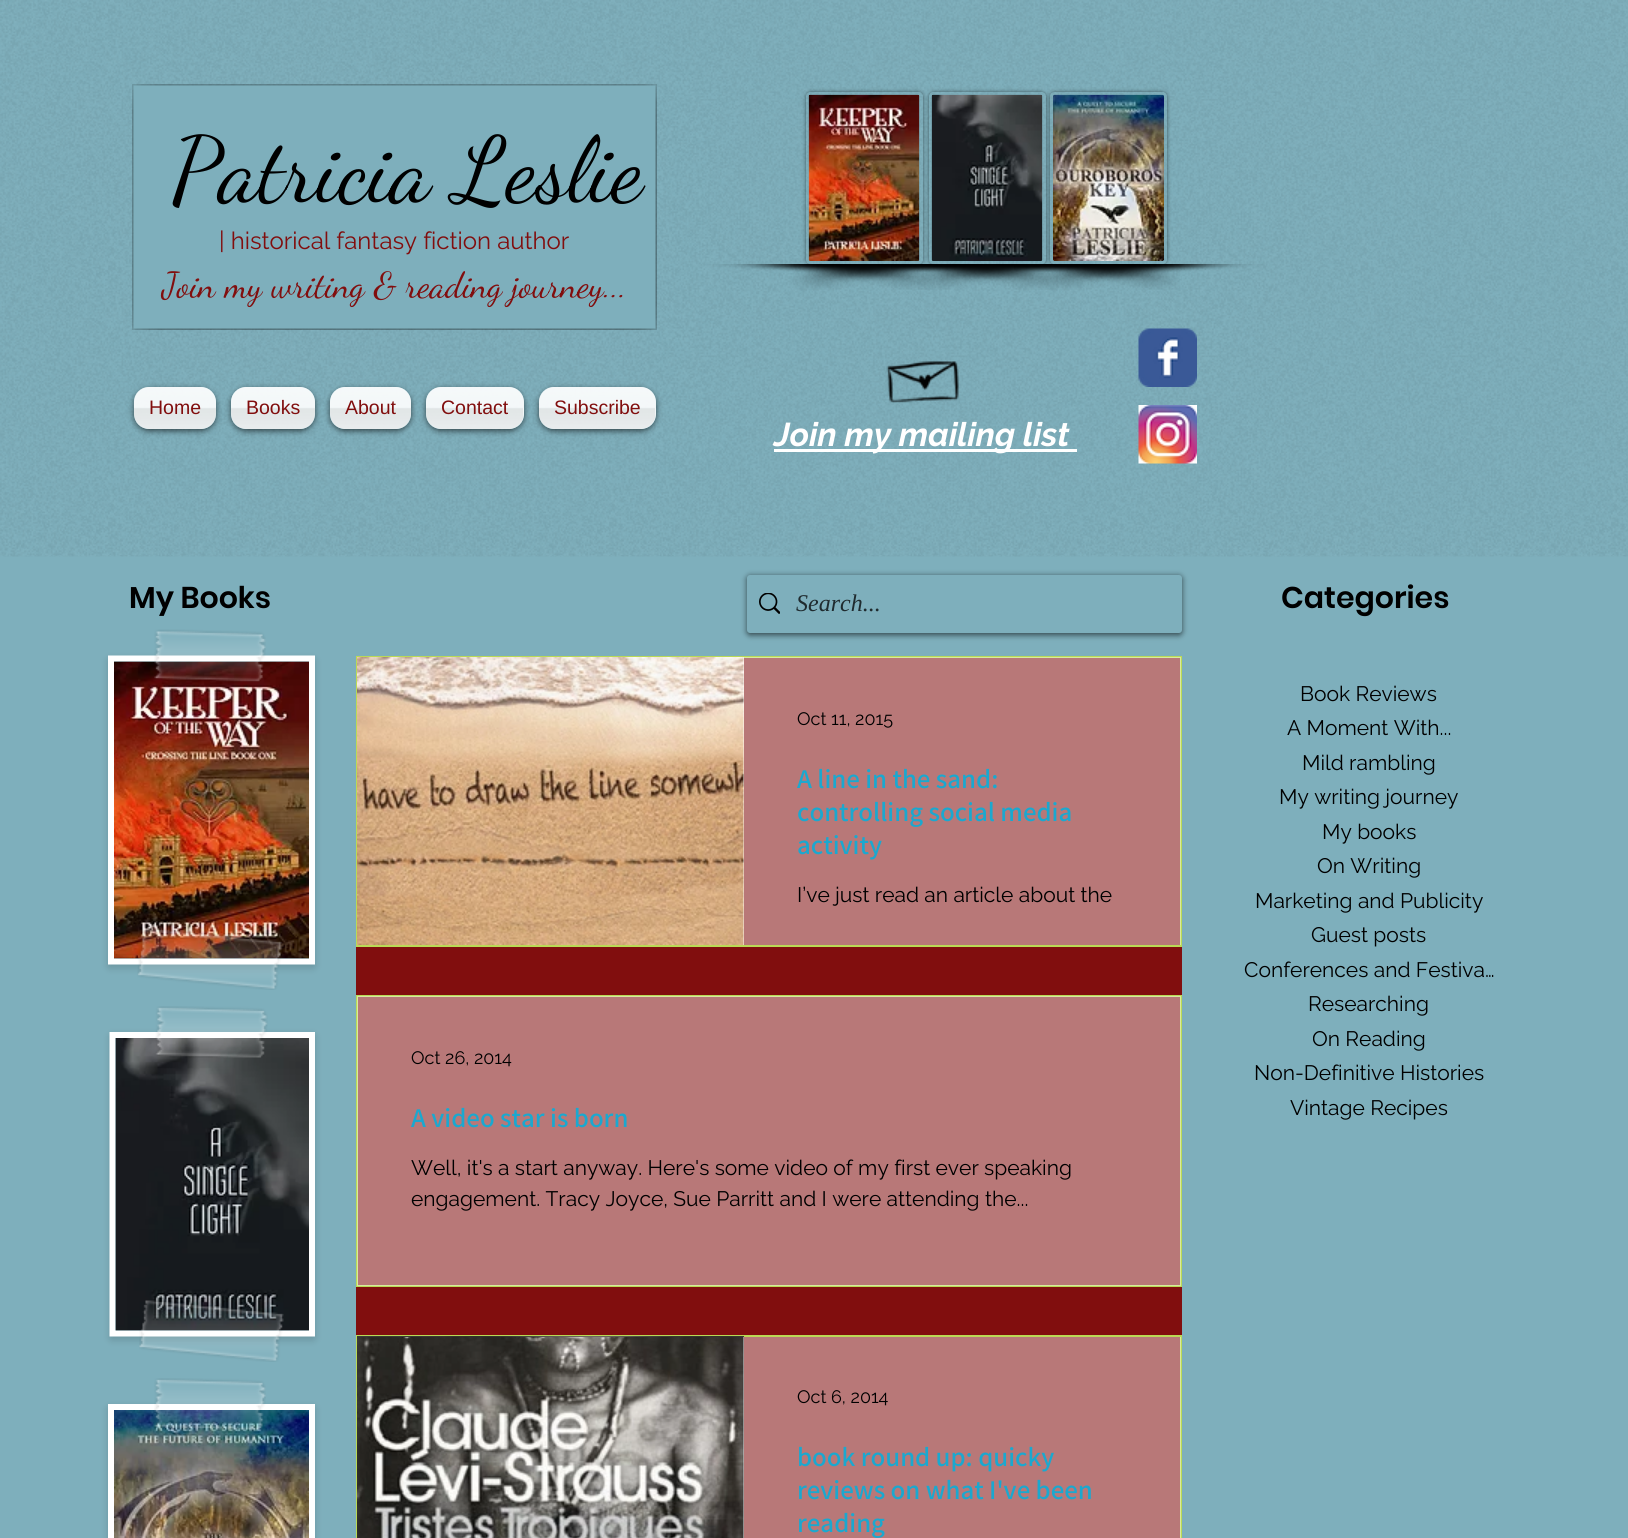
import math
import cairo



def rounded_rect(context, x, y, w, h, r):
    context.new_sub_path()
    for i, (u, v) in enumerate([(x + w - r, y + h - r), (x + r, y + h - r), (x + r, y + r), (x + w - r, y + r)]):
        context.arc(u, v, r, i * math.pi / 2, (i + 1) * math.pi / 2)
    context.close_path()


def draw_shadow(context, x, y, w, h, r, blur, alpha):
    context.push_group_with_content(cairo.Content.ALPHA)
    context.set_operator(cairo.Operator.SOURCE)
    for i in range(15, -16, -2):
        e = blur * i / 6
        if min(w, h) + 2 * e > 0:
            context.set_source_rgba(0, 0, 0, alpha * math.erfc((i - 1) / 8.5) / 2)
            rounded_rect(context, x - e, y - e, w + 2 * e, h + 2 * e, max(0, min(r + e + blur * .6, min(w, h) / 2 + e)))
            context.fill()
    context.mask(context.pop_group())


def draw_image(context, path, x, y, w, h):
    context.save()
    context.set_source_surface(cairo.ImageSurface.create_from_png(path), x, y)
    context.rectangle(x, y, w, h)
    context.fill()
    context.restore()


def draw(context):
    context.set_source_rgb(126 / 255, 175 / 255, 188 / 255)
    context.paint()
    draw_image(context, "images/1.png", 0, 0, 1628, 557)
    context.save()
    context.set_fill_rule(cairo.FillRule.EVEN_ODD)
    context.new_path()
    context.move_to(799, 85)
    context.line_to(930, 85)
    context.line_to(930, 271)
    context.line_to(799, 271)
    context.close_path()
    context.move_to(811, 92)
    context.line_to(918, 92)
    context.curve_to(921, 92, 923, 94, 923, 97)
    context.line_to(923, 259)
    context.curve_to(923, 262, 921, 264, 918, 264)
    context.line_to(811, 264)
    context.curve_to(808, 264, 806, 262, 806, 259)
    context.line_to(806, 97)
    context.curve_to(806, 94, 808, 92, 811, 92)
    context.close_path()
    context.clip()
    context.set_source_rgb(0, 0, 0)
    draw_shadow(context, 806, 92, 117, 172, 5, 2, 0.5)
    context.restore()
    draw_image(context, "images/2.png", 808, 94, 112, 167)
    draw_image(context, "images/4.png", 793, 264, 230, 26)
    draw_image(context, "images/3.png", 705, 264, 230, 26)
    context.save()
    context.set_fill_rule(cairo.FillRule.EVEN_ODD)
    context.new_path()
    context.move_to(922, 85)
    context.line_to(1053, 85)
    context.line_to(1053, 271)
    context.line_to(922, 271)
    context.close_path()
    context.move_to(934, 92)
    context.line_to(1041, 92)
    context.curve_to(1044, 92, 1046, 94, 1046, 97)
    context.line_to(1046, 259)
    context.curve_to(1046, 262, 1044, 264, 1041, 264)
    context.line_to(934, 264)
    context.curve_to(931, 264, 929, 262, 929, 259)
    context.line_to(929, 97)
    context.curve_to(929, 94, 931, 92, 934, 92)
    context.close_path()
    context.clip()
    context.set_source_rgb(0, 0, 0)
    draw_shadow(context, 929, 92, 117, 172, 5, 2, 0.5)
    context.restore()
    draw_image(context, "images/5.png", 931, 94, 112, 167)
    draw_image(context, "images/7.png", 917, 264, 229, 26)
    draw_image(context, "images/6.png", 891, 264, 167, 26)
    draw_image(context, "images/8.png", 132, 84, 525, 246)
    context.save()
    context.set_fill_rule(cairo.FillRule.EVEN_ODD)
    context.new_path()
    context.move_to(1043, 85)
    context.line_to(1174, 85)
    context.line_to(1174, 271)
    context.line_to(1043, 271)
    context.close_path()
    context.move_to(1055, 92)
    context.line_to(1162, 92)
    context.curve_to(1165, 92, 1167, 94, 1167, 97)
    context.line_to(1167, 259)
    context.curve_to(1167, 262, 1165, 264, 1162, 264)
    context.line_to(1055, 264)
    context.curve_to(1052, 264, 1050, 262, 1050, 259)
    context.line_to(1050, 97)
    context.curve_to(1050, 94, 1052, 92, 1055, 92)
    context.close_path()
    context.clip()
    context.set_source_rgb(0, 0, 0)
    draw_shadow(context, 1050, 92, 117, 172, 5, 2, 0.5)
    context.restore()
    draw_image(context, "images/9.png", 1053, 94, 111, 167)
    draw_image(context, "images/11.png", 1038, 264, 229, 26)
    draw_image(context, "images/10.png", 1014, 264, 166, 26)
    draw_image(context, "images/12.png", 886, 361, 73, 42)
    draw_image(context, "images/13.png", 1138, 328, 59, 59)
    draw_image(context, "images/14.png", 1138, 405, 59, 59)
    context.save()
    context.set_fill_rule(cairo.FillRule.EVEN_ODD)
    context.new_path()
    context.move_to(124, 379)
    context.line_to(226, 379)
    context.line_to(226, 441)
    context.line_to(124, 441)
    context.close_path()
    context.move_to(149, 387)
    context.line_to(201, 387)
    context.curve_to(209.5, 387, 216, 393.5, 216, 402)
    context.line_to(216, 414)
    context.curve_to(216, 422.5, 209.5, 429, 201, 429)
    context.line_to(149, 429)
    context.curve_to(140.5, 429, 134, 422.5, 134, 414)
    context.line_to(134, 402)
    context.curve_to(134, 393.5, 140.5, 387, 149, 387)
    context.close_path()
    context.clip()
    context.set_source_rgb(0, 0, 0)
    draw_shadow(context, 134, 389, 82, 42, 15, 3, 0.6)
    context.restore()
    context.set_source_rgba(1, 1, 1, 0.9)
    rounded_rect(context, 134, 387, 82, 42, 15)
    context.fill()
    draw_image(context, "images/15.png", 133, 387, 83, 42)
    context.save()
    context.set_fill_rule(cairo.FillRule.EVEN_ODD)
    context.new_path()
    context.move_to(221, 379)
    context.line_to(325, 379)
    context.line_to(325, 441)
    context.line_to(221, 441)
    context.close_path()
    context.move_to(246, 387)
    context.line_to(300, 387)
    context.curve_to(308.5, 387, 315, 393.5, 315, 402)
    context.line_to(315, 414)
    context.curve_to(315, 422.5, 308.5, 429, 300, 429)
    context.line_to(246, 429)
    context.curve_to(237.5, 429, 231, 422.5, 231, 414)
    context.line_to(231, 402)
    context.curve_to(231, 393.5, 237.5, 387, 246, 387)
    context.close_path()
    context.clip()
    context.set_source_rgb(0, 0, 0)
    draw_shadow(context, 231, 389, 84, 42, 15, 3, 0.6)
    context.restore()
    rounded_rect(context, 231, 387, 84, 42, 15)
    context.fill()
    draw_image(context, "images/16.png", 231, 387, 84, 42)
    context.save()
    context.set_fill_rule(cairo.FillRule.EVEN_ODD)
    context.new_path()
    context.move_to(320, 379)
    context.line_to(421, 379)
    context.line_to(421, 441)
    context.line_to(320, 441)
    context.close_path()
    context.move_to(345, 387)
    context.line_to(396, 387)
    context.curve_to(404.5, 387, 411, 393.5, 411, 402)
    context.line_to(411, 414)
    context.curve_to(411, 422.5, 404.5, 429, 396, 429)
    context.line_to(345, 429)
    context.curve_to(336.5, 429, 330, 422.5, 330, 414)
    context.line_to(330, 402)
    context.curve_to(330, 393.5, 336.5, 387, 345, 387)
    context.close_path()
    context.clip()
    context.set_source_rgb(0, 0, 0)
    draw_shadow(context, 330, 389, 81, 42, 15, 3, 0.6)
    context.restore()
    rounded_rect(context, 330, 387, 81, 42, 15)
    context.fill()
    draw_image(context, "images/17.png", 330, 387, 81, 42)
    context.save()
    context.set_fill_rule(cairo.FillRule.EVEN_ODD)
    context.new_path()
    context.move_to(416, 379)
    context.line_to(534, 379)
    context.line_to(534, 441)
    context.line_to(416, 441)
    context.close_path()
    context.move_to(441, 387)
    context.line_to(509, 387)
    context.curve_to(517.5, 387, 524, 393.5, 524, 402)
    context.line_to(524, 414)
    context.curve_to(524, 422.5, 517.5, 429, 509, 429)
    context.line_to(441, 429)
    context.curve_to(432.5, 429, 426, 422.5, 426, 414)
    context.line_to(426, 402)
    context.curve_to(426, 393.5, 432.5, 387, 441, 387)
    context.close_path()
    context.clip()
    context.set_source_rgb(0, 0, 0)
    draw_shadow(context, 426, 389, 98, 42, 15, 3, 0.6)
    context.restore()
    rounded_rect(context, 426, 387, 98, 42, 15)
    context.fill()
    draw_image(context, "images/18.png", 426, 387, 97, 42)
    context.save()
    context.set_fill_rule(cairo.FillRule.EVEN_ODD)
    context.new_path()
    context.move_to(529, 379)
    context.line_to(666, 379)
    context.line_to(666, 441)
    context.line_to(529, 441)
    context.close_path()
    context.move_to(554, 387)
    context.line_to(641, 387)
    context.curve_to(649.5, 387, 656, 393.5, 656, 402)
    context.line_to(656, 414)
    context.curve_to(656, 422.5, 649.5, 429, 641, 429)
    context.line_to(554, 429)
    context.curve_to(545.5, 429, 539, 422.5, 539, 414)
    context.line_to(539, 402)
    context.curve_to(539, 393.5, 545.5, 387, 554, 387)
    context.close_path()
    context.clip()
    context.set_source_rgb(0, 0, 0)
    draw_shadow(context, 539, 389, 117, 42, 15, 3, 0.6)
    context.restore()
    rounded_rect(context, 539, 387, 117, 42, 15)
    context.fill()
    draw_image(context, "images/19.png", 538, 387, 117, 42)
    context.set_source_rgb(1, 1, 1)
    context.rectangle(774, 449, 303, 3)
    context.fill()
    context.set_source_rgb(0, 0, 0)
    draw_shadow(context, 747, 576, 435, 59, 3, 3, 0.6)
    context.set_source_rgb(126 / 255, 175 / 255, 188 / 255)
    rounded_rect(context, 747, 575, 435, 58, 3)
    context.fill()
    draw_image(context, "images/20.png", 759, 593, 21, 21)
    context.set_source_rgb(0, 0, 0)
    draw_shadow(context, 108, 659, 207, 309, 1.5, 4, 0.15)
    context.new_path()
    context.move_to(111, 658.5)
    context.line_to(312, 658.5)
    context.line_to(312, 961.5)
    context.line_to(111, 961.5)
    context.close_path()
    context.set_source_rgb(1, 1, 1)
    context.set_line_width(6)
    context.stroke()
    draw_image(context, "images/22.png", 114, 661, 195, 298)
    draw_image(context, "images/21.png", 154, 629, 112, 53)
    draw_image(context, "images/23.png", 137, 927, 146, 63)
    context.set_source_rgb(0, 0, 0)
    draw_shadow(context, 110, 1035, 205, 305, 1.5, 4, 0.15)
    context.new_path()
    context.move_to(112.5, 1035)
    context.line_to(312, 1035)
    context.line_to(312, 1333.5)
    context.line_to(112.5, 1333.5)
    context.close_path()
    context.set_source_rgb(1, 1, 1)
    context.stroke()
    draw_image(context, "images/25.png", 115, 1038, 194, 293)
    draw_image(context, "images/24.png", 155, 1006, 113, 52)
    draw_image(context, "images/26.png", 139, 1300, 145, 62)
    context.set_source_rgb(0, 0, 0)
    draw_shadow(context, 108, 1407, 207, 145, 1.5, 4, 0.15)
    context.new_path()
    context.move_to(111, 1407)
    context.line_to(312, 1407)
    context.line_to(312, 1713)
    context.line_to(111, 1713)
    context.close_path()
    context.set_source_rgb(1, 1, 1)
    context.stroke()
    draw_image(context, "images/28.png", 114, 1410, 195, 128)
    draw_image(context, "images/27.png", 154, 1378, 112, 53)
    context.set_source_rgb(129 / 255, 14 / 255, 14 / 255)
    context.rectangle(356, 658, 826, 880)
    context.fill()
    context.rectangle(357, 657, 824, 289)
    context.set_source_rgb(186 / 255, 218 / 255, 85 / 255)
    context.set_line_width(2)
    context.stroke()
    draw_image(context, "images/29.png", 357, 657, 387, 288)
    context.set_source_rgba(1, 1, 1, 0.44)
    context.rectangle(743, 657, 438, 288)
    context.fill()
    context.rectangle(357, 996, 824, 290)
    context.set_source_rgb(186 / 255, 218 / 255, 85 / 255)
    context.stroke()
    context.set_source_rgba(1, 1, 1, 0.44)
    context.rectangle(357, 996, 824, 290)
    context.fill()
    context.rectangle(357, 1336, 824, 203)
    context.set_source_rgb(186 / 255, 218 / 255, 85 / 255)
    context.stroke()
    draw_image(context, "images/30.png", 357, 1336, 387, 1)
    draw_image(context, "images/31.png", 357, 1337, 387, 201)
    context.set_source_rgba(1, 1, 1, 0.44)
    context.rectangle(743, 1337, 438, 201)
    context.fill()
    context.select_font_face("Dancing Script")
    context.set_font_size(91.5)
    context.set_source_rgb(0, 0, 0)
    context.move_to(171, 200)
    context.show_text("Patricia Leslie")
    context.select_font_face("Raleway")
    context.set_font_size(24)
    context.set_source_rgb(129 / 255, 14 / 255, 14 / 255)
    context.move_to(219, 249)
    context.show_text("| historical fantasy fiction author")
    context.select_font_face("Dancing Script")
    context.set_font_size(36)
    context.move_to(162, 297)
    context.show_text("Join my writing & reading journey...")
    context.select_font_face("Liberation Sans")
    context.set_font_size(19.5)
    context.move_to(149, 414)
    context.show_text("Home")
    context.move_to(246, 414)
    context.show_text("Books")
    context.move_to(345, 414)
    context.show_text("About")
    context.move_to(441, 414)
    context.show_text("Contact")
    context.move_to(554, 414)
    context.show_text("Subscribe")
    context.select_font_face("Raleway", cairo.FontSlant.ITALIC, cairo.FontWeight.BOLD)
    context.set_font_size(33)
    context.set_source_rgb(1, 1, 1)
    context.move_to(774, 446)
    context.show_text("Join my mailing list")
    context.select_font_face("Poppins SemiBold")
    context.set_font_size(30)
    context.set_source_rgb(0, 0, 0)
    context.move_to(129, 608)
    context.show_text("My Books")
    context.select_font_face("Liberation Serif", cairo.FontSlant.ITALIC)
    context.set_font_size(24)
    context.set_source_rgb(31 / 255, 43 / 255, 47 / 255)
    context.move_to(796, 611)
    context.show_text("Search...")
    context.select_font_face("Poppins SemiBold")
    context.set_font_size(30)
    context.set_source_rgb(0, 0, 0)
    context.move_to(1281, 608)
    context.show_text("Categories")
    context.select_font_face("Raleway")
    context.set_font_size(18)
    context.move_to(797, 725)
    context.show_text("Oct 11, 2015")
    context.select_font_face("Assistant SemiBold")
    context.set_font_size(27)
    context.set_source_rgb(27 / 255, 168 / 255, 207 / 255)
    context.move_to(797, 788)
    context.show_text("A line in the sand:")
    context.move_to(797, 821)
    context.show_text("controlling social media")
    context.move_to(797, 854)
    context.show_text("activity")
    context.select_font_face("Raleway")
    context.set_font_size(21)
    context.set_source_rgb(0, 0, 0)
    context.move_to(797, 902)
    context.show_text("I’ve just read an article about the")
    context.set_font_size(18)
    context.move_to(411, 1064)
    context.show_text("Oct 26, 2014")
    context.select_font_face("Assistant SemiBold")
    context.set_font_size(27)
    context.set_source_rgb(27 / 255, 168 / 255, 207 / 255)
    context.move_to(411, 1127)
    context.show_text("A video star is born")
    context.select_font_face("Raleway")
    context.set_font_size(21)
    context.set_source_rgb(0, 0, 0)
    context.move_to(411, 1175)
    context.show_text("Well, it's a start anyway. Here's some video of my first ever speaking")
    context.move_to(411, 1206)
    context.show_text("engagement. Tracy Joyce, Sue Parritt and I were attending the...")
    context.set_font_size(18)
    context.move_to(797, 1403)
    context.show_text("Oct 6, 2014")
    context.select_font_face("Assistant SemiBold")
    context.set_font_size(27)
    context.set_source_rgb(27 / 255, 168 / 255, 207 / 255)
    context.move_to(797, 1466)
    context.show_text("book round up: quicky")
    context.move_to(797, 1499)
    context.show_text("reviews on what I've been")
    context.move_to(797, 1532)
    context.show_text("reading")
    context.select_font_face("Raleway")
    context.set_font_size(21)
    context.set_source_rgb(0, 0, 0)
    context.move_to(1300, 701)
    context.show_text("Book Reviews")
    context.move_to(1287, 735)
    context.show_text("A Moment With...")
    context.move_to(1302, 770)
    context.show_text("Mild rambling")
    context.move_to(1279, 804)
    context.show_text("My writing journey")
    context.move_to(1322, 839)
    context.show_text("My books")
    context.move_to(1317, 873)
    context.show_text("On Writing")
    context.move_to(1255, 908)
    context.show_text("Marketing and Publicity")
    context.move_to(1311, 942)
    context.show_text("Guest posts")
    context.move_to(1244, 977)
    context.show_text("Conferences and Festiva…")
    context.move_to(1308, 1011)
    context.show_text("Researching")
    context.save()
    context.rectangle(1313, 1023, 112, 32)
    context.clip()
    context.move_to(1312, 1046)
    context.show_text("On Reading")
    context.restore()
    context.move_to(1254, 1080)
    context.show_text("Non-Definitive Histories")
    context.move_to(1290, 1115)
    context.show_text("Vintage Recipes")


surface = cairo.ImageSurface(cairo.Format.RGB24, 1628, 1538)
context = cairo.Context(surface)
options = cairo.FontOptions()
options.set_hint_metrics(cairo.HintMetrics.OFF)
options.set_hint_style(cairo.HintStyle.NONE)
context.set_font_options(options)
context.set_miter_limit(4)
draw(context)
surface.write_to_png("out.png")
